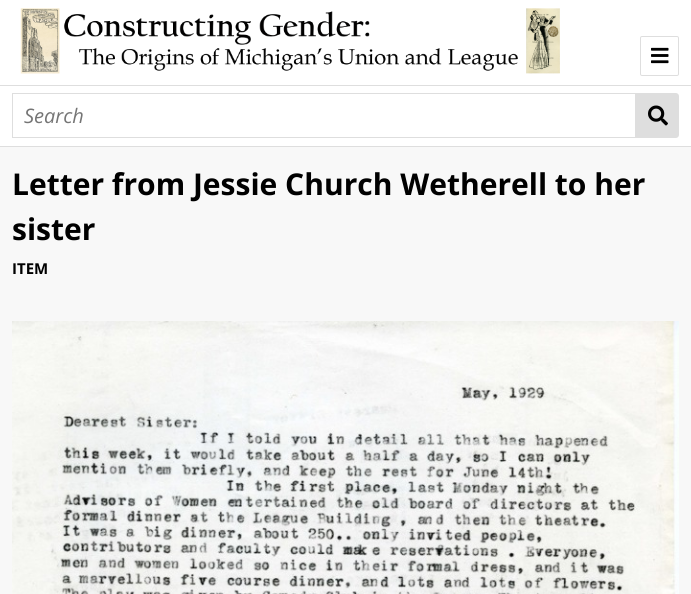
import math
import cairo



def rounded_rect(context, x, y, w, h, r):
    context.new_sub_path()
    for i, (u, v) in enumerate([(x + w - r, y + h - r), (x + r, y + h - r), (x + r, y + r), (x + w - r, y + r)]):
        context.arc(u, v, r, i * math.pi / 2, (i + 1) * math.pi / 2)
    context.close_path()


def draw_image(context, path, x, y, w, h):
    context.save()
    context.set_source_surface(cairo.ImageSurface.create_from_png(path), x, y)
    context.rectangle(x, y, w, h)
    context.fill()
    context.restore()


def draw(context):
    context.set_source_rgb(248 / 255, 248 / 255, 248 / 255)
    context.paint()
    context.set_source_rgb(1, 1, 1)
    context.rectangle(0, 0, 691, 85)
    context.fill()
    draw_image(context, "images/1.png", 20, 8, 540, 66)
    rounded_rect(context, 640.5, 36.5, 38, 39, 1.5)
    context.set_source_rgb(222 / 255, 222 / 255, 222 / 255)
    context.set_line_width(1)
    context.stroke()
    draw_image(context, "images/2.png", 651, 47, 18, 17)
    context.set_source_rgb(1, 1, 1)
    context.rectangle(0, 86, 691, 60)
    context.fill()
    context.set_source_rgb(222 / 255, 222 / 255, 222 / 255)
    context.rectangle(0, 85, 691, 1)
    context.fill()
    context.rectangle(0, 146, 691, 1)
    context.fill()
    context.rectangle(12.5, 93.5, 623, 44)
    context.stroke()
    context.new_path()
    context.move_to(636, 93)
    context.line_to(676, 93)
    context.curve_to(677.5, 93, 679, 94.5, 679, 96)
    context.line_to(679, 135)
    context.curve_to(679, 136.5, 677.5, 138, 676, 138)
    context.line_to(636, 138)
    context.close_path()
    context.fill()
    draw_image(context, "images/3.png", 648, 105, 20, 21)
    draw_image(context, "images/4.png", 12, 321, 667, 273)
    context.select_font_face("Open Sans", cairo.FontSlant.ITALIC)
    context.set_font_size(20)
    context.set_source_rgb(117 / 255, 117 / 255, 117 / 255)
    context.move_to(24, 123)
    context.show_text("Search")
    context.select_font_face("Open Sans", cairo.FontSlant.NORMAL, cairo.FontWeight.BOLD)
    context.set_font_size(30)
    context.set_source_rgb(0, 0, 0)
    context.move_to(12, 195)
    context.show_text("Letter from Jessie Church Wetherell to her")
    context.move_to(12, 240)
    context.show_text("sister")
    context.set_font_size(15)
    context.move_to(12, 274)
    context.show_text("ITEM")


surface = cairo.ImageSurface(cairo.Format.RGB24, 691, 594)
context = cairo.Context(surface)
options = cairo.FontOptions()
options.set_hint_metrics(cairo.HintMetrics.OFF)
options.set_hint_style(cairo.HintStyle.NONE)
context.set_font_options(options)
context.set_miter_limit(4)
draw(context)
surface.write_to_png("out.png")
